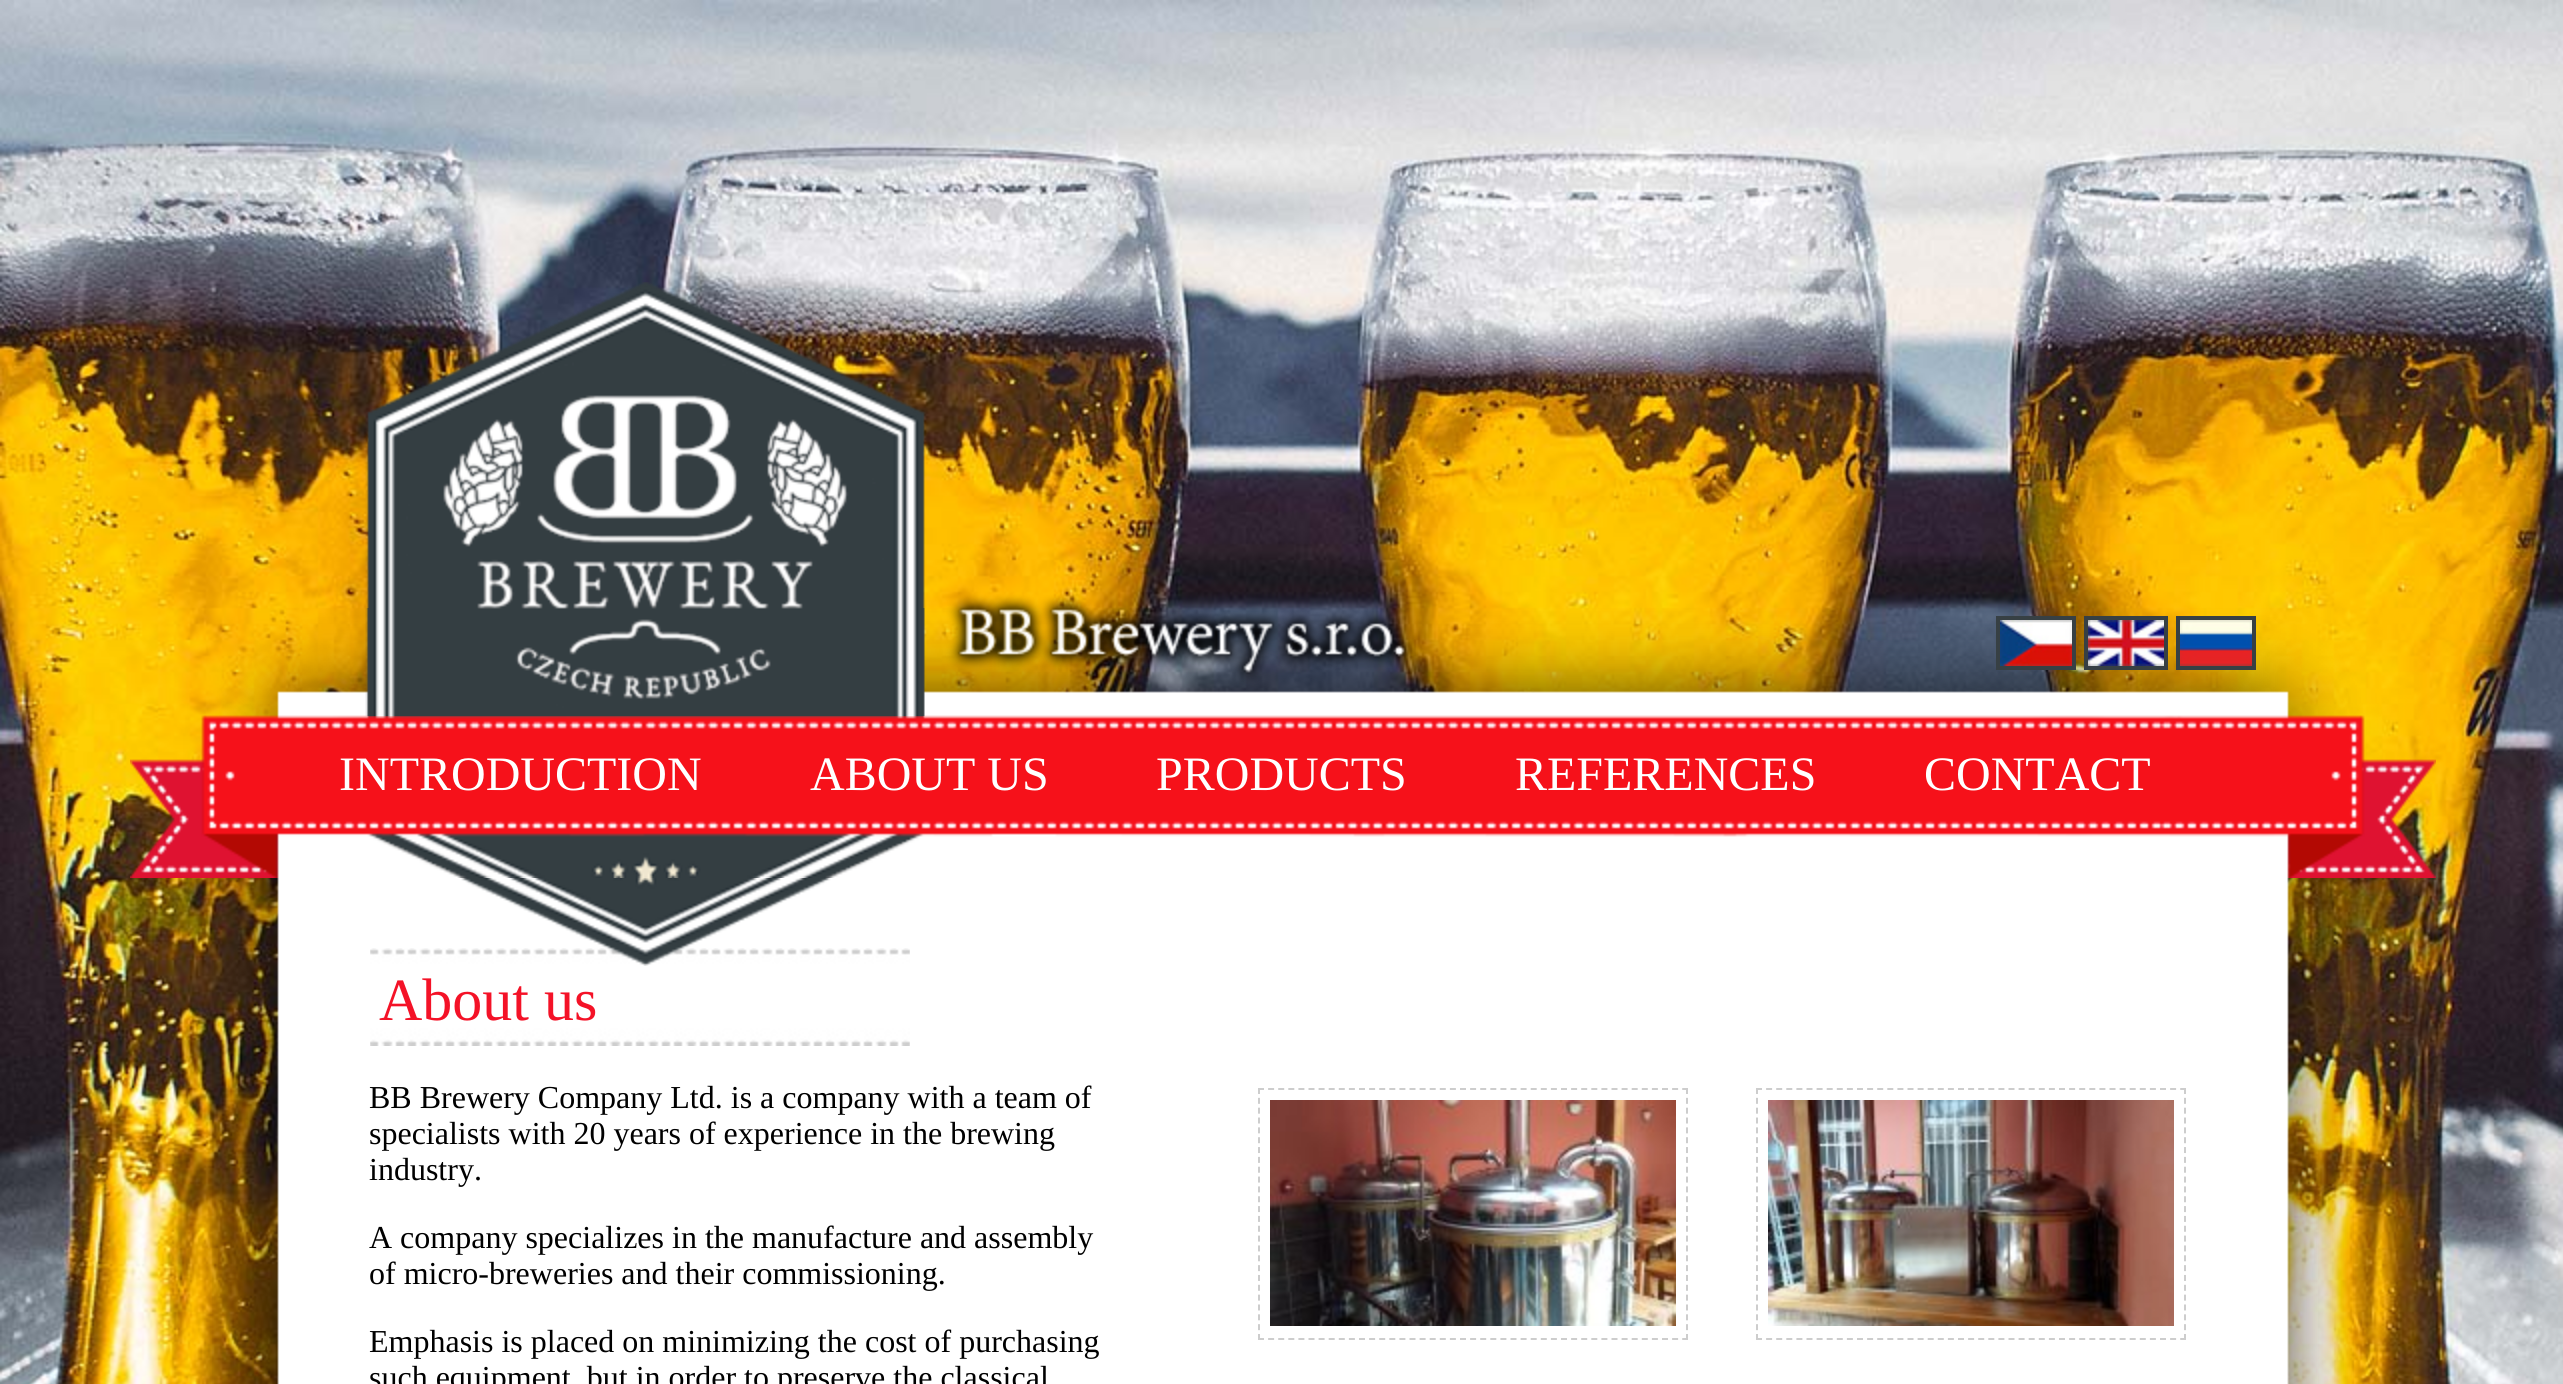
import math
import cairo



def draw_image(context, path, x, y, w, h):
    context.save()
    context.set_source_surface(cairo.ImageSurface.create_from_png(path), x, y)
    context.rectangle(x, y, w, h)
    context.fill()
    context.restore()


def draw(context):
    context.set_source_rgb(1, 1, 1)
    context.paint()
    draw_image(context, "images/1.png", 0, 0, 2563, 1384)
    draw_image(context, "images/7.png", 130, 608, 2306, 270)
    draw_image(context, "images/2.png", 365, 282, 1051, 434)
    context.rectangle(1998, 618, 76, 50)
    context.set_source_rgb(55 / 255, 64 / 255, 68 / 255)
    context.set_line_width(4)
    context.stroke()
    draw_image(context, "images/3.png", 2000, 620, 72, 46)
    context.rectangle(2086, 618, 80, 50)
    context.stroke()
    draw_image(context, "images/4.png", 2088, 620, 76, 46)
    context.rectangle(2178, 618, 76, 50)
    context.stroke()
    draw_image(context, "images/5.png", 2180, 620, 72, 46)
    draw_image(context, "images/8.png", 212, 878, 2142, 506)
    draw_image(context, "images/9.png", 370, 948, 540, 98)
    draw_image(context, "images/6.png", 461, 878, 370, 88)
    context.new_path()
    context.move_to(1258, 1089)
    context.line_to(1688, 1089)
    context.set_source_rgb(205 / 255, 205 / 255, 205 / 255)
    context.set_line_width(2)
    context.set_dash([6, 4.1])
    context.stroke()
    context.new_path()
    context.move_to(1687, 1088)
    context.line_to(1687, 1340)
    context.set_dash([6, 3.84])
    context.stroke()
    context.new_path()
    context.move_to(1258, 1339)
    context.line_to(1688, 1339)
    context.set_dash([6, 4.1])
    context.stroke()
    context.new_path()
    context.move_to(1259, 1088)
    context.line_to(1259, 1340)
    context.set_dash([6, 3.84])
    context.stroke()
    draw_image(context, "images/10.png", 1270, 1100, 406, 226)
    context.new_path()
    context.move_to(1756, 1089)
    context.line_to(2186, 1089)
    context.set_dash([6, 4.1])
    context.stroke()
    context.new_path()
    context.move_to(2185, 1088)
    context.line_to(2185, 1340)
    context.set_dash([6, 3.84])
    context.stroke()
    context.new_path()
    context.move_to(1756, 1339)
    context.line_to(2186, 1339)
    context.set_dash([6, 4.1])
    context.stroke()
    context.new_path()
    context.move_to(1757, 1088)
    context.line_to(1757, 1340)
    context.set_dash([6, 3.84])
    context.stroke()
    draw_image(context, "images/11.png", 1768, 1100, 406, 226)
    context.select_font_face("Liberation Serif")
    context.set_font_size(48)
    context.set_source_rgb(1, 1, 1)
    context.move_to(339, 790)
    context.show_text("INTRODUCTION")
    context.move_to(810, 790)
    context.show_text("ABOUT US")
    context.move_to(1156, 790)
    context.show_text("PRODUCTS")
    context.move_to(1515, 790)
    context.show_text("REFERENCES")
    context.move_to(1924, 790)
    context.show_text("CONTACT")
    context.set_font_size(60)
    context.set_source_rgb(244 / 255, 18 / 255, 39 / 255)
    context.move_to(379, 1020)
    context.show_text("About us")
    context.set_font_size(32)
    context.set_source_rgb(0, 0, 0)
    context.move_to(369, 1108)
    context.show_text("BB Brewery Company Ltd. is a company with a team of")
    context.move_to(369, 1144)
    context.show_text("specialists with 20 years of experience in the brewing")
    context.move_to(369, 1180)
    context.show_text("industry.")
    context.move_to(369, 1248)
    context.show_text("A company specializes in the manufacture and assembly")
    context.move_to(369, 1284)
    context.show_text("of micro-breweries and their commissioning.")
    context.move_to(369, 1352)
    context.show_text("Emphasis is placed on minimizing the cost of purchasing")
    context.move_to(369, 1388)
    context.show_text("such equipment, but in order to preserve the classical")


surface = cairo.ImageSurface(cairo.Format.RGB24, 2563, 1384)
context = cairo.Context(surface)
options = cairo.FontOptions()
options.set_hint_metrics(cairo.HintMetrics.OFF)
options.set_hint_style(cairo.HintStyle.NONE)
context.set_font_options(options)
context.set_miter_limit(4)
draw(context)
surface.write_to_png("out.png")
